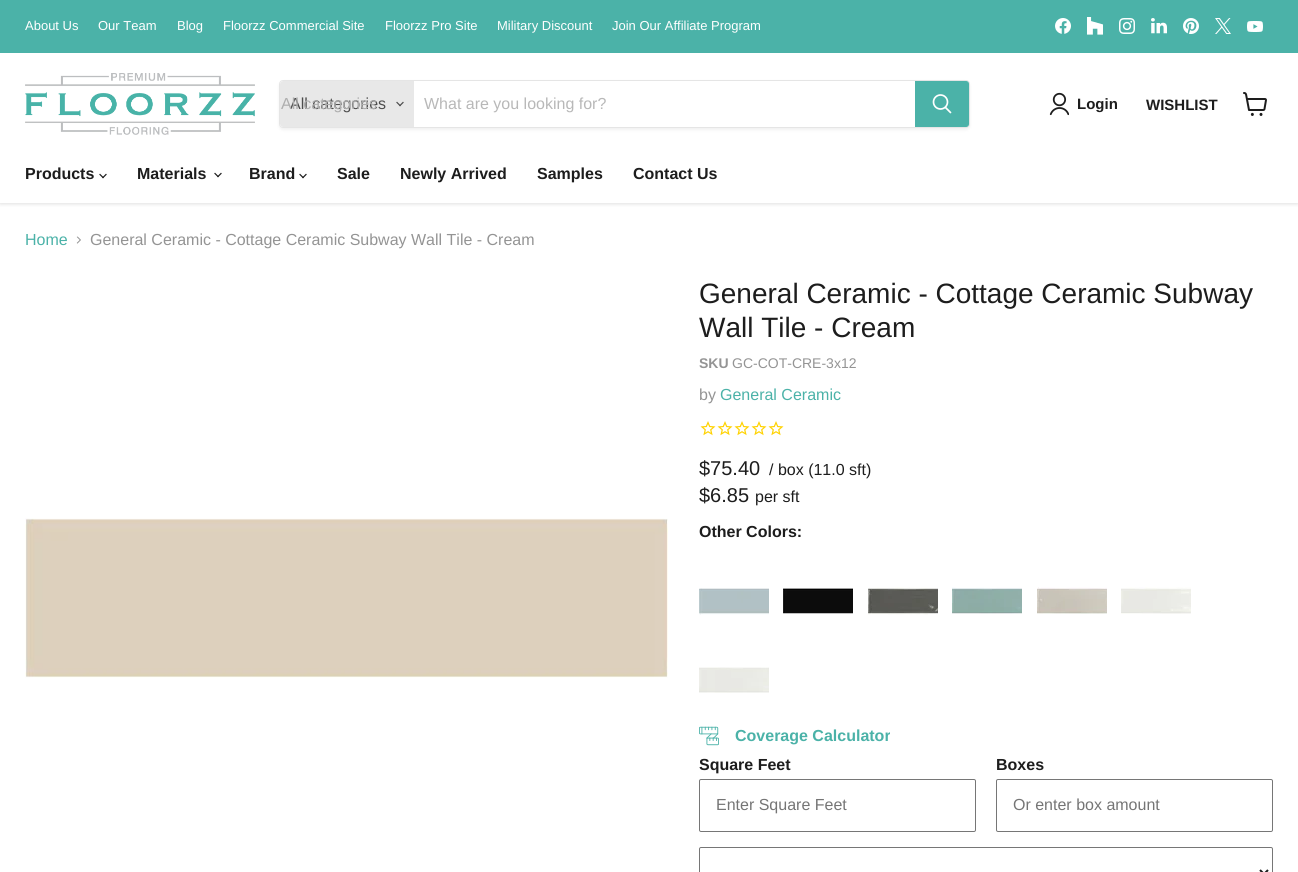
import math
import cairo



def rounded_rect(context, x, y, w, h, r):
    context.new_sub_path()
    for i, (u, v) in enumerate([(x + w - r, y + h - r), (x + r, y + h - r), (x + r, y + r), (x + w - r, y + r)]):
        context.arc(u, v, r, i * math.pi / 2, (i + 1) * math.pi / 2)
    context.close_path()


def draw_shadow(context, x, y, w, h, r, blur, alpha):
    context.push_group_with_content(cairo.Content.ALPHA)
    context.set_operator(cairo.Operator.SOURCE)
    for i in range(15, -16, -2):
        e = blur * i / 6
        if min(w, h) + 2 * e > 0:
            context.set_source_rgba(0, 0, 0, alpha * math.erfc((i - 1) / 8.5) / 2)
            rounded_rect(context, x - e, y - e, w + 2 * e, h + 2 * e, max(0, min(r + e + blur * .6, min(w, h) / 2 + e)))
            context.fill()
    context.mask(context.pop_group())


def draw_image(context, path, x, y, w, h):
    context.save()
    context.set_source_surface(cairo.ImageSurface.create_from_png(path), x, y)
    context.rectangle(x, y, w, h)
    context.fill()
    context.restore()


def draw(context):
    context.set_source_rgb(1, 1, 1)
    context.paint()
    context.save()
    context.rectangle(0, 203, 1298, 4)
    context.clip()
    context.set_source_rgb(128 / 255, 128 / 255, 128 / 255)
    draw_shadow(context, 0, 54, 1298, 150, 0, 2, 0.25)
    context.restore()
    context.set_source_rgb(75 / 255, 178 / 255, 168 / 255)
    context.rectangle(0, 0, 1298, 53)
    context.fill()
    draw_image(context, "images/1.png", 1055, 18, 16, 16)
    draw_image(context, "images/2.png", 1087, 17, 16, 18)
    draw_image(context, "images/3.png", 1119, 18, 16, 16)
    draw_image(context, "images/4.png", 1151, 18, 16, 16)
    draw_image(context, "images/5.png", 1183, 18, 16, 16)
    draw_image(context, "images/6.png", 1215, 18, 16, 16)
    draw_image(context, "images/7.png", 1247, 21, 16, 11)
    draw_image(context, "images/8.png", 25, 73, 230, 62)
    context.save()
    context.set_fill_rule(cairo.FillRule.EVEN_ODD)
    context.new_path()
    context.move_to(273, 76)
    context.line_to(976, 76)
    context.line_to(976, 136)
    context.line_to(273, 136)
    context.close_path()
    context.move_to(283, 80)
    context.line_to(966, 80)
    context.curve_to(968, 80, 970, 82, 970, 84)
    context.line_to(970, 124)
    context.curve_to(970, 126, 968, 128, 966, 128)
    context.line_to(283, 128)
    context.curve_to(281, 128, 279, 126, 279, 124)
    context.line_to(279, 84)
    context.curve_to(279, 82, 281, 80, 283, 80)
    context.close_path()
    context.clip()
    context.set_source_rgb(128 / 255, 128 / 255, 128 / 255)
    draw_shadow(context, 279, 82, 691, 48, 4, 1.5, 0.11)
    context.restore()
    rounded_rect(context, 279.5, 80.5, 690, 47, 3.5)
    context.set_source_rgba(128 / 255, 128 / 255, 128 / 255, 0.2)
    context.set_line_width(1)
    context.stroke()
    context.set_source_rgb(232 / 255, 232 / 255, 232 / 255)
    context.new_path()
    context.move_to(283, 81)
    context.line_to(414, 81)
    context.line_to(414, 127)
    context.line_to(283, 127)
    context.curve_to(281.5, 127, 280, 125.5, 280, 124)
    context.line_to(280, 84)
    context.curve_to(280, 82.5, 281.5, 81, 283, 81)
    context.close_path()
    context.fill()
    draw_image(context, "images/9.png", 396, 101, 8, 6)
    context.set_source_rgb(75 / 255, 178 / 255, 168 / 255)
    context.new_path()
    context.move_to(915.5, 81.5)
    context.line_to(966, 81.5)
    context.curve_to(967.5, 81.5, 968.5, 82.5, 968.5, 84)
    context.line_to(968.5, 124)
    context.curve_to(968.5, 125.5, 967.5, 126.5, 966, 126.5)
    context.line_to(915.5, 126.5)
    context.close_path()
    context.fill_preserve()
    context.stroke()
    context.new_path()
    context.move_to(950.5, 112.5)
    context.line_to(945.5, 107.5)
    context.set_source_rgb(1, 1, 1)
    context.set_line_width(1.7)
    context.set_line_cap(cairo.LineCap.ROUND)
    context.stroke()
    context.arc(940.5, 102, 7, 0, 2 * math.pi)
    context.set_line_cap(cairo.LineCap.BUTT)
    context.stroke()
    draw_image(context, "images/10.png", 1049, 92, 20, 24)
    draw_image(context, "images/11.png", 1243, 92, 24, 24)
    draw_image(context, "images/12.png", 99, 173, 8, 6)
    draw_image(context, "images/12.png", 214, 172, 8, 6)
    draw_image(context, "images/12.png", 299, 173, 8, 6)
    draw_image(context, "images/13.png", 76, 236, 5, 8)
    draw_image(context, "images/14.png", 25, 518, 643, 160)
    draw_image(context, "images/15.png", 700, 421, 16, 15)
    draw_image(context, "images/15.png", 717, 421, 16, 15)
    draw_image(context, "images/15.png", 734, 421, 16, 15)
    draw_image(context, "images/15.png", 751, 421, 16, 15)
    draw_image(context, "images/15.png", 768, 421, 16, 15)
    draw_image(context, "images/16.png", 699, 588, 70, 27)
    draw_image(context, "images/17.png", 783, 588, 70, 26)
    draw_image(context, "images/18.png", 868, 587, 70, 28)
    draw_image(context, "images/19.png", 952, 587, 70, 27)
    draw_image(context, "images/20.png", 1037, 587, 70, 27)
    draw_image(context, "images/21.png", 1121, 587, 70, 27)
    draw_image(context, "images/22.png", 699, 667, 70, 26)
    draw_image(context, "images/23.png", 699, 726, 20, 20)
    rounded_rect(context, 699.5, 779.5, 276, 52, 1.5)
    context.set_source_rgb(118 / 255, 118 / 255, 118 / 255)
    context.set_line_width(1)
    context.stroke()
    rounded_rect(context, 996.5, 779.5, 276, 52, 1.5)
    context.stroke()
    rounded_rect(context, 699.5, 847.5, 573, 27, 1.5)
    context.stroke()
    context.new_path()
    context.move_to(1260, 870)
    context.line_to(1264, 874)
    context.line_to(1268, 870)
    context.set_source_rgb(29 / 255, 29 / 255, 29 / 255)
    context.set_line_width(2)
    context.stroke()
    context.select_font_face("Liberation Sans")
    context.set_font_size(13)
    context.set_source_rgb(1, 1, 1)
    context.move_to(25, 30)
    context.show_text("About Us")
    context.move_to(98, 30)
    context.show_text("Our Team")
    context.move_to(177, 30)
    context.show_text("Blog")
    context.move_to(223, 30)
    context.show_text("Floorzz Commercial Site")
    context.move_to(385, 30)
    context.show_text("Floorzz Pro Site")
    context.move_to(497, 30)
    context.show_text("Military Discount")
    context.move_to(612, 30)
    context.show_text("Join Our Affiliate Program")
    context.set_font_size(16)
    context.set_source_rgb(77 / 255, 77 / 255, 77 / 255)
    context.move_to(290, 109)
    context.show_text("All categories")
    context.set_source_rgb(174 / 255, 174 / 255, 174 / 255)
    context.move_to(281, 109)
    context.show_text("All categories")
    context.set_source_rgb(184 / 255, 184 / 255, 184 / 255)
    context.move_to(424, 109)
    context.show_text("What are you looking for?")
    context.select_font_face("Liberation Sans", cairo.FontSlant.NORMAL, cairo.FontWeight.BOLD)
    context.set_font_size(15)
    context.set_source_rgb(29 / 255, 29 / 255, 29 / 255)
    context.move_to(1077, 109)
    context.show_text("Login")
    context.move_to(1146, 110)
    context.show_text("WISHLIST")
    context.set_font_size(16)
    context.move_to(25, 179)
    context.show_text("Products")
    context.move_to(137, 179)
    context.show_text("Materials")
    context.move_to(249, 179)
    context.show_text("Brand")
    context.move_to(337, 179)
    context.show_text("Sale")
    context.move_to(400, 179)
    context.show_text("Newly Arrived")
    context.move_to(537, 179)
    context.show_text("Samples")
    context.move_to(633, 179)
    context.show_text("Contact Us")
    context.select_font_face("Liberation Sans")
    context.set_source_rgb(75 / 255, 178 / 255, 168 / 255)
    context.move_to(25, 245)
    context.show_text("Home")
    context.set_source_rgb(148 / 255, 148 / 255, 148 / 255)
    context.move_to(90, 245)
    context.show_text("General Ceramic - Cottage Ceramic Subway Wall Tile - Cream")
    context.set_font_size(28)
    context.set_source_rgb(29 / 255, 29 / 255, 29 / 255)
    context.move_to(699, 303)
    context.show_text("General Ceramic - Cottage Ceramic Subway")
    context.move_to(699, 337)
    context.show_text("Wall Tile - Cream")
    context.select_font_face("Liberation Sans", cairo.FontSlant.NORMAL, cairo.FontWeight.BOLD)
    context.set_font_size(14)
    context.set_source_rgb(148 / 255, 148 / 255, 148 / 255)
    context.move_to(699, 368)
    context.show_text("SKU")
    context.select_font_face("Liberation Sans")
    context.move_to(732, 368)
    context.show_text("GC-COT-CRE-3x12")
    context.set_font_size(16)
    context.move_to(699, 400)
    context.show_text("by")
    context.set_source_rgb(75 / 255, 178 / 255, 168 / 255)
    context.move_to(720, 400)
    context.show_text("General Ceramic")
    context.set_font_size(20)
    context.set_source_rgb(29 / 255, 29 / 255, 29 / 255)
    context.move_to(699, 475)
    context.show_text("$75.40")
    context.set_font_size(16)
    context.move_to(769, 475)
    context.show_text("/ box (11.0 sft)")
    context.set_font_size(20)
    context.move_to(699, 502)
    context.show_text("$6.85")
    context.set_font_size(16)
    context.move_to(755, 502)
    context.show_text("per sft")
    context.select_font_face("Liberation Sans", cairo.FontSlant.NORMAL, cairo.FontWeight.BOLD)
    context.move_to(699, 537)
    context.show_text("Other Colors:")
    context.set_source_rgb(75 / 255, 178 / 255, 168 / 255)
    context.move_to(735, 741)
    context.show_text("Coverage Calculator")
    context.set_source_rgb(29 / 255, 29 / 255, 29 / 255)
    context.move_to(699, 770)
    context.show_text("Square Feet")
    context.select_font_face("Liberation Sans")
    context.set_source_rgb(117 / 255, 117 / 255, 117 / 255)
    context.move_to(716, 810)
    context.show_text("Enter Square Feet")
    context.select_font_face("Liberation Sans", cairo.FontSlant.NORMAL, cairo.FontWeight.BOLD)
    context.set_source_rgb(29 / 255, 29 / 255, 29 / 255)
    context.move_to(996, 770)
    context.show_text("Boxes")
    context.select_font_face("Liberation Sans")
    context.set_source_rgb(117 / 255, 117 / 255, 117 / 255)
    context.move_to(1013, 810)
    context.show_text("Or enter box amount")


surface = cairo.ImageSurface(cairo.Format.RGB24, 1298, 872)
context = cairo.Context(surface)
options = cairo.FontOptions()
options.set_hint_metrics(cairo.HintMetrics.OFF)
options.set_hint_style(cairo.HintStyle.NONE)
context.set_font_options(options)
context.set_miter_limit(4)
draw(context)
surface.write_to_png("out.png")
